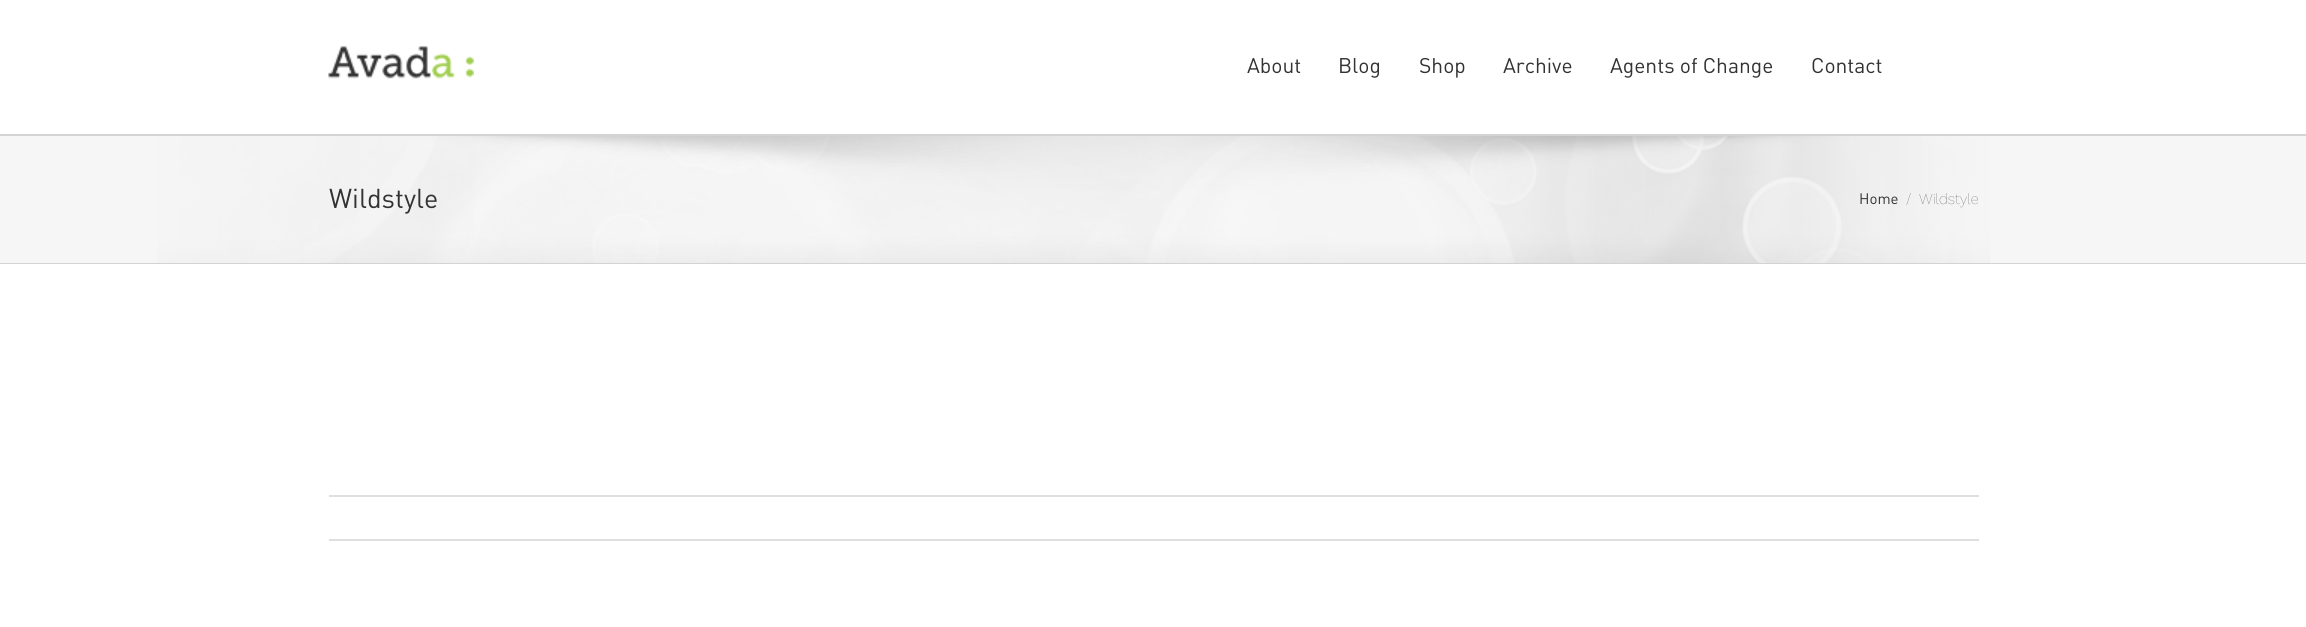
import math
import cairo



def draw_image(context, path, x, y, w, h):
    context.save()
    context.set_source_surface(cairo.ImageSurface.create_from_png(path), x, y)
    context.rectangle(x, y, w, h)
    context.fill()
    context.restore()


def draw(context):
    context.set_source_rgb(246 / 255, 246 / 255, 246 / 255)
    context.paint()
    context.set_source_rgb(1, 1, 1)
    context.rectangle(0, 0, 2306, 134)
    context.fill()
    draw_image(context, "images/1.png", 328, 46, 146, 33)
    draw_image(context, "images/2.png", 157, 136, 1833, 127)
    context.set_source_rgb(210 / 255, 211 / 255, 212 / 255)
    context.rectangle(0, 134, 2306, 2)
    context.fill()
    context.rectangle(0, 263, 2306, 1)
    context.fill()
    context.set_source_rgb(1, 1, 1)
    context.rectangle(0, 264, 2306, 363)
    context.fill()
    context.set_source_rgb(224 / 255, 222 / 255, 222 / 255)
    context.rectangle(329, 495, 1650, 2)
    context.fill()
    context.rectangle(329, 539, 1650, 2)
    context.fill()
    context.select_font_face("DIN")
    context.set_font_size(21)
    context.set_source_rgb(51 / 255, 51 / 255, 51 / 255)
    context.move_to(1247, 73)
    context.show_text("About")
    context.move_to(1338, 73)
    context.show_text("Blog")
    context.move_to(1419, 73)
    context.show_text("Shop")
    context.move_to(1503, 73)
    context.show_text("Archive")
    context.move_to(1610, 73)
    context.show_text("Agents of Change")
    context.move_to(1811, 73)
    context.show_text("Contact")
    context.set_font_size(27)
    context.move_to(329, 208)
    context.show_text("Wildstyle")
    context.set_font_size(15)
    context.move_to(1859, 204)
    context.show_text("Home")
    context.select_font_face("Work Sans Thin")
    context.move_to(1906, 204)
    context.show_text("/")
    context.move_to(1919, 204)
    context.show_text("Wildstyle")


surface = cairo.ImageSurface(cairo.Format.RGB24, 2306, 627)
context = cairo.Context(surface)
options = cairo.FontOptions()
options.set_hint_metrics(cairo.HintMetrics.OFF)
options.set_hint_style(cairo.HintStyle.NONE)
context.set_font_options(options)
context.set_miter_limit(4)
draw(context)
surface.write_to_png("out.png")
